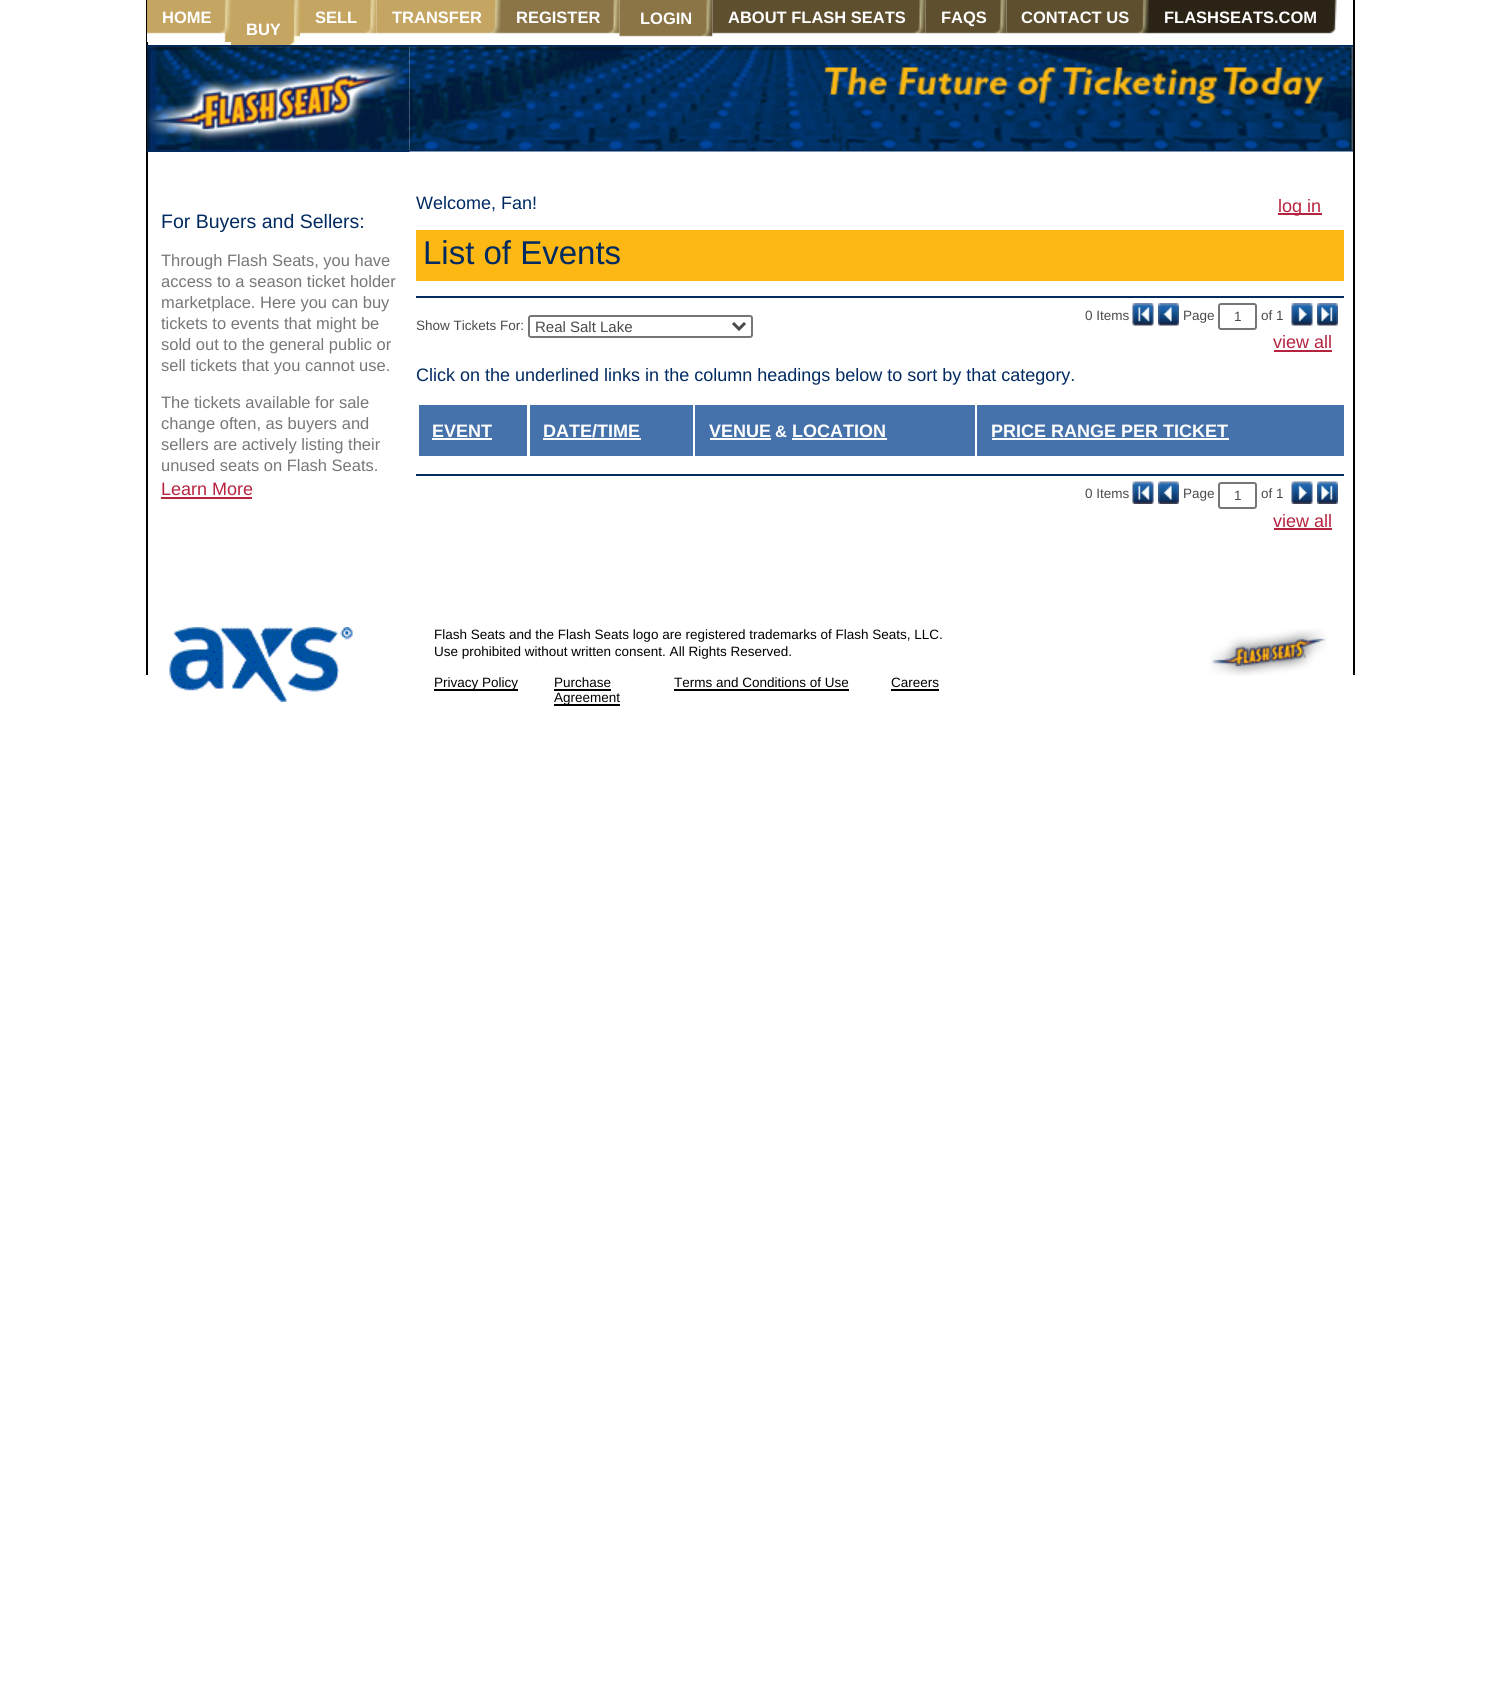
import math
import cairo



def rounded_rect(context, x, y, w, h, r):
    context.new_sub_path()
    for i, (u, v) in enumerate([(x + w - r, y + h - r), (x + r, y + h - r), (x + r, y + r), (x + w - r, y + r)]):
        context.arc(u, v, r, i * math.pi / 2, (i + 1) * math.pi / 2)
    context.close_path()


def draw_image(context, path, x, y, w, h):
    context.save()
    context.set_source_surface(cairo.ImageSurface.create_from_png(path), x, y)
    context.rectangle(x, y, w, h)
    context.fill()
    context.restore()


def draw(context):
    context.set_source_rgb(1, 1, 1)
    context.paint()
    context.set_source_rgb(0, 0, 0)
    context.rectangle(146, 0, 2, 675)
    context.fill()
    draw_image(context, "images/1.png", 147, 0, 84, 42)
    draw_image(context, "images/2.png", 300, 0, 77, 34)
    draw_image(context, "images/3.png", 376, 0, 125, 34)
    draw_image(context, "images/4.png", 501, 0, 119, 34)
    draw_image(context, "images/5.png", 619, 0, 94, 37)
    draw_image(context, "images/6.png", 712, 0, 214, 37)
    draw_image(context, "images/7.png", 925, 0, 82, 34)
    draw_image(context, "images/8.png", 1006, 0, 143, 34)
    draw_image(context, "images/9.png", 1149, 0, 188, 34)
    draw_image(context, "images/10.png", 231, 0, 69, 45)
    context.set_source_rgb(0, 42 / 255, 96 / 255)
    context.rectangle(147, 45, 1206, 2)
    context.fill()
    draw_image(context, "images/11.png", 147, 46, 263, 104)
    context.rectangle(147, 150, 263, 2)
    context.fill()
    draw_image(context, "images/12.png", 409, 46, 944, 68)
    draw_image(context, "images/13.png", 409, 114, 944, 38)
    context.set_source_rgb(0, 0, 0)
    context.rectangle(1353, 0, 2, 675)
    context.fill()
    context.set_source_rgb(182 / 255, 35 / 255, 63 / 255)
    context.rectangle(161, 497, 91, 2)
    context.fill()
    context.rectangle(1278, 213, 44, 2)
    context.fill()
    context.set_source_rgb(253 / 255, 184 / 255, 19 / 255)
    context.rectangle(416, 230, 928, 51)
    context.fill()
    context.set_source_rgb(0, 42 / 255, 96 / 255)
    context.rectangle(416, 296, 928, 2)
    context.fill()
    rounded_rect(context, 529, 316, 223, 21, 2)
    context.set_source_rgb(118 / 255, 118 / 255, 118 / 255)
    context.stroke()
    context.new_path()
    context.move_to(733, 323)
    context.line_to(739, 329)
    context.line_to(745, 323)
    context.set_source_rgb(74 / 255, 74 / 255, 74 / 255)
    context.set_line_width(3)
    context.stroke()
    draw_image(context, "images/14.png", 1132, 303, 22, 23)
    draw_image(context, "images/15.png", 1158, 303, 21, 23)
    rounded_rect(context, 1219, 304, 37, 25, 2)
    context.set_source_rgb(118 / 255, 118 / 255, 118 / 255)
    context.set_line_width(2)
    context.stroke()
    draw_image(context, "images/16.png", 1291, 303, 22, 23)
    draw_image(context, "images/17.png", 1317, 303, 21, 23)
    context.set_source_rgb(182 / 255, 35 / 255, 63 / 255)
    context.rectangle(1274, 350, 58, 2)
    context.fill()
    context.set_source_rgb(69 / 255, 114 / 255, 171 / 255)
    context.rectangle(419, 405, 108, 51)
    context.fill()
    context.set_source_rgb(1, 1, 1)
    context.rectangle(432, 438, 60, 2)
    context.fill()
    context.set_source_rgb(69 / 255, 114 / 255, 171 / 255)
    context.rectangle(530, 405, 163, 51)
    context.fill()
    context.set_source_rgb(1, 1, 1)
    context.rectangle(543, 438, 98, 2)
    context.fill()
    context.set_source_rgb(69 / 255, 114 / 255, 171 / 255)
    context.rectangle(695, 405, 280, 51)
    context.fill()
    context.set_source_rgb(1, 1, 1)
    context.rectangle(710, 438, 61, 2)
    context.fill()
    context.rectangle(792, 438, 95, 2)
    context.fill()
    context.set_source_rgb(69 / 255, 114 / 255, 171 / 255)
    context.rectangle(977, 405, 367, 51)
    context.fill()
    context.set_source_rgb(1, 1, 1)
    context.rectangle(992, 438, 237, 2)
    context.fill()
    context.set_source_rgb(0, 42 / 255, 96 / 255)
    context.rectangle(416, 474, 928, 2)
    context.fill()
    draw_image(context, "images/18.png", 1132, 481, 22, 23)
    draw_image(context, "images/19.png", 1158, 481, 21, 23)
    rounded_rect(context, 1219, 483, 37, 25, 2)
    context.set_source_rgb(118 / 255, 118 / 255, 118 / 255)
    context.stroke()
    draw_image(context, "images/20.png", 1291, 481, 22, 23)
    draw_image(context, "images/21.png", 1317, 481, 21, 23)
    context.set_source_rgb(182 / 255, 35 / 255, 63 / 255)
    context.rectangle(1274, 528, 58, 2)
    context.fill()
    draw_image(context, "images/22.png", 169, 627, 184, 75)
    draw_image(context, "images/23.png", 1210, 629, 117, 47)
    context.set_source_rgb(0, 0, 0)
    context.rectangle(434, 689, 84, 2)
    context.fill()
    context.rectangle(554, 689, 57, 2)
    context.fill()
    context.rectangle(554, 704, 66, 2)
    context.fill()
    context.rectangle(674, 689, 175, 2)
    context.fill()
    context.rectangle(891, 689, 48, 2)
    context.fill()
    context.select_font_face("Liberation Sans", cairo.FontSlant.NORMAL, cairo.FontWeight.BOLD)
    context.set_font_size(16.5)
    context.set_source_rgb(1, 1, 1)
    context.move_to(162, 23)
    context.show_text("HOME")
    context.move_to(315, 23)
    context.show_text("SELL")
    context.move_to(392, 23)
    context.show_text("TRANSFER")
    context.move_to(516, 23)
    context.show_text("REGISTER")
    context.move_to(640, 24)
    context.show_text("LOGIN")
    context.move_to(728, 23)
    context.show_text("ABOUT FLASH SEATS")
    context.move_to(941, 23)
    context.show_text("FAQS")
    context.move_to(1021, 23)
    context.show_text("CONTACT US")
    context.move_to(1164, 23)
    context.show_text("FLASHSEATS.COM")
    context.move_to(246, 35)
    context.show_text("BUY")
    context.select_font_face("Liberation Sans")
    context.set_font_size(19.5)
    context.set_source_rgb(0, 42 / 255, 96 / 255)
    context.move_to(161, 228)
    context.show_text("For Buyers and Sellers:")
    context.set_font_size(16.5)
    context.set_source_rgb(119 / 255, 119 / 255, 119 / 255)
    context.move_to(161, 266)
    context.show_text("Through Flash Seats, you have")
    context.move_to(161, 287)
    context.show_text("access to a season ticket holder")
    context.move_to(161, 308)
    context.show_text("marketplace. Here you can buy")
    context.move_to(161, 329)
    context.show_text("tickets to events that might be")
    context.move_to(161, 350)
    context.show_text("sold out to the general public or")
    context.move_to(161, 371)
    context.show_text("sell tickets that you cannot use.")
    context.move_to(161, 408)
    context.show_text("The tickets available for sale")
    context.move_to(161, 429)
    context.show_text("change often, as buyers and")
    context.move_to(161, 450)
    context.show_text("sellers are actively listing their")
    context.move_to(161, 471)
    context.show_text("unused seats on Flash Seats.")
    context.set_font_size(18)
    context.set_source_rgb(182 / 255, 35 / 255, 63 / 255)
    context.move_to(161, 495)
    context.show_text("Learn More")
    context.set_source_rgb(0, 42 / 255, 96 / 255)
    context.move_to(416, 209)
    context.show_text("Welcome, Fan!")
    context.set_source_rgb(182 / 255, 35 / 255, 63 / 255)
    context.move_to(1278, 212)
    context.show_text("log in")
    context.set_font_size(33)
    context.set_source_rgb(0, 42 / 255, 96 / 255)
    context.move_to(423, 264)
    context.show_text("List of Events")
    context.set_font_size(13.5)
    context.set_source_rgb(74 / 255, 74 / 255, 74 / 255)
    context.move_to(416, 330)
    context.show_text("Show Tickets For:")
    context.set_font_size(15)
    context.move_to(535, 332)
    context.show_text("Real Salt Lake")
    context.set_font_size(13.5)
    context.move_to(1085, 320)
    context.show_text("0 Items")
    context.move_to(1183, 320)
    context.show_text("Page")
    context.move_to(1234, 321)
    context.show_text("1")
    context.move_to(1261, 320)
    context.show_text("of 1")
    context.set_font_size(18)
    context.set_source_rgb(182 / 255, 35 / 255, 63 / 255)
    context.move_to(1273, 348)
    context.show_text("view all")
    context.set_source_rgb(0, 42 / 255, 96 / 255)
    context.move_to(416, 381)
    context.show_text("Click on the underlined links in the column headings below to sort by that category.")
    context.select_font_face("Liberation Sans", cairo.FontSlant.NORMAL, cairo.FontWeight.BOLD)
    context.set_source_rgb(1, 1, 1)
    context.move_to(432, 437)
    context.show_text("EVENT")
    context.move_to(543, 437)
    context.show_text("DATE/TIME")
    context.move_to(709, 437)
    context.show_text("VENUE")
    context.set_font_size(16.5)
    context.move_to(775, 437)
    context.show_text("&")
    context.set_font_size(18)
    context.move_to(792, 437)
    context.show_text("LOCATION")
    context.move_to(991, 437)
    context.show_text("PRICE RANGE PER TICKET")
    context.select_font_face("Liberation Sans")
    context.set_font_size(13.5)
    context.set_source_rgb(74 / 255, 74 / 255, 74 / 255)
    context.move_to(1085, 498)
    context.show_text("0 Items")
    context.move_to(1183, 498)
    context.show_text("Page")
    context.move_to(1234, 500)
    context.show_text("1")
    context.move_to(1261, 498)
    context.show_text("of 1")
    context.set_font_size(18)
    context.set_source_rgb(182 / 255, 35 / 255, 63 / 255)
    context.move_to(1273, 527)
    context.show_text("view all")
    context.set_font_size(13.5)
    context.set_source_rgb(0, 0, 0)
    context.move_to(434, 639)
    context.show_text("Flash Seats and the Flash Seats logo are registered trademarks of Flash Seats, LLC.")
    context.move_to(434, 656)
    context.show_text("Use prohibited without written consent. All Rights Reserved.")
    context.move_to(434, 687)
    context.show_text("Privacy Policy")
    context.move_to(554, 687)
    context.show_text("Purchase")
    context.move_to(554, 702)
    context.show_text("Agreement")
    context.move_to(674, 687)
    context.show_text("Terms and Conditions of Use")
    context.move_to(891, 687)
    context.show_text("Careers")


surface = cairo.ImageSurface(cairo.Format.RGB24, 1500, 1701)
context = cairo.Context(surface)
options = cairo.FontOptions()
options.set_hint_metrics(cairo.HintMetrics.OFF)
options.set_hint_style(cairo.HintStyle.NONE)
context.set_font_options(options)
context.set_miter_limit(4)
draw(context)
surface.write_to_png("out.png")
